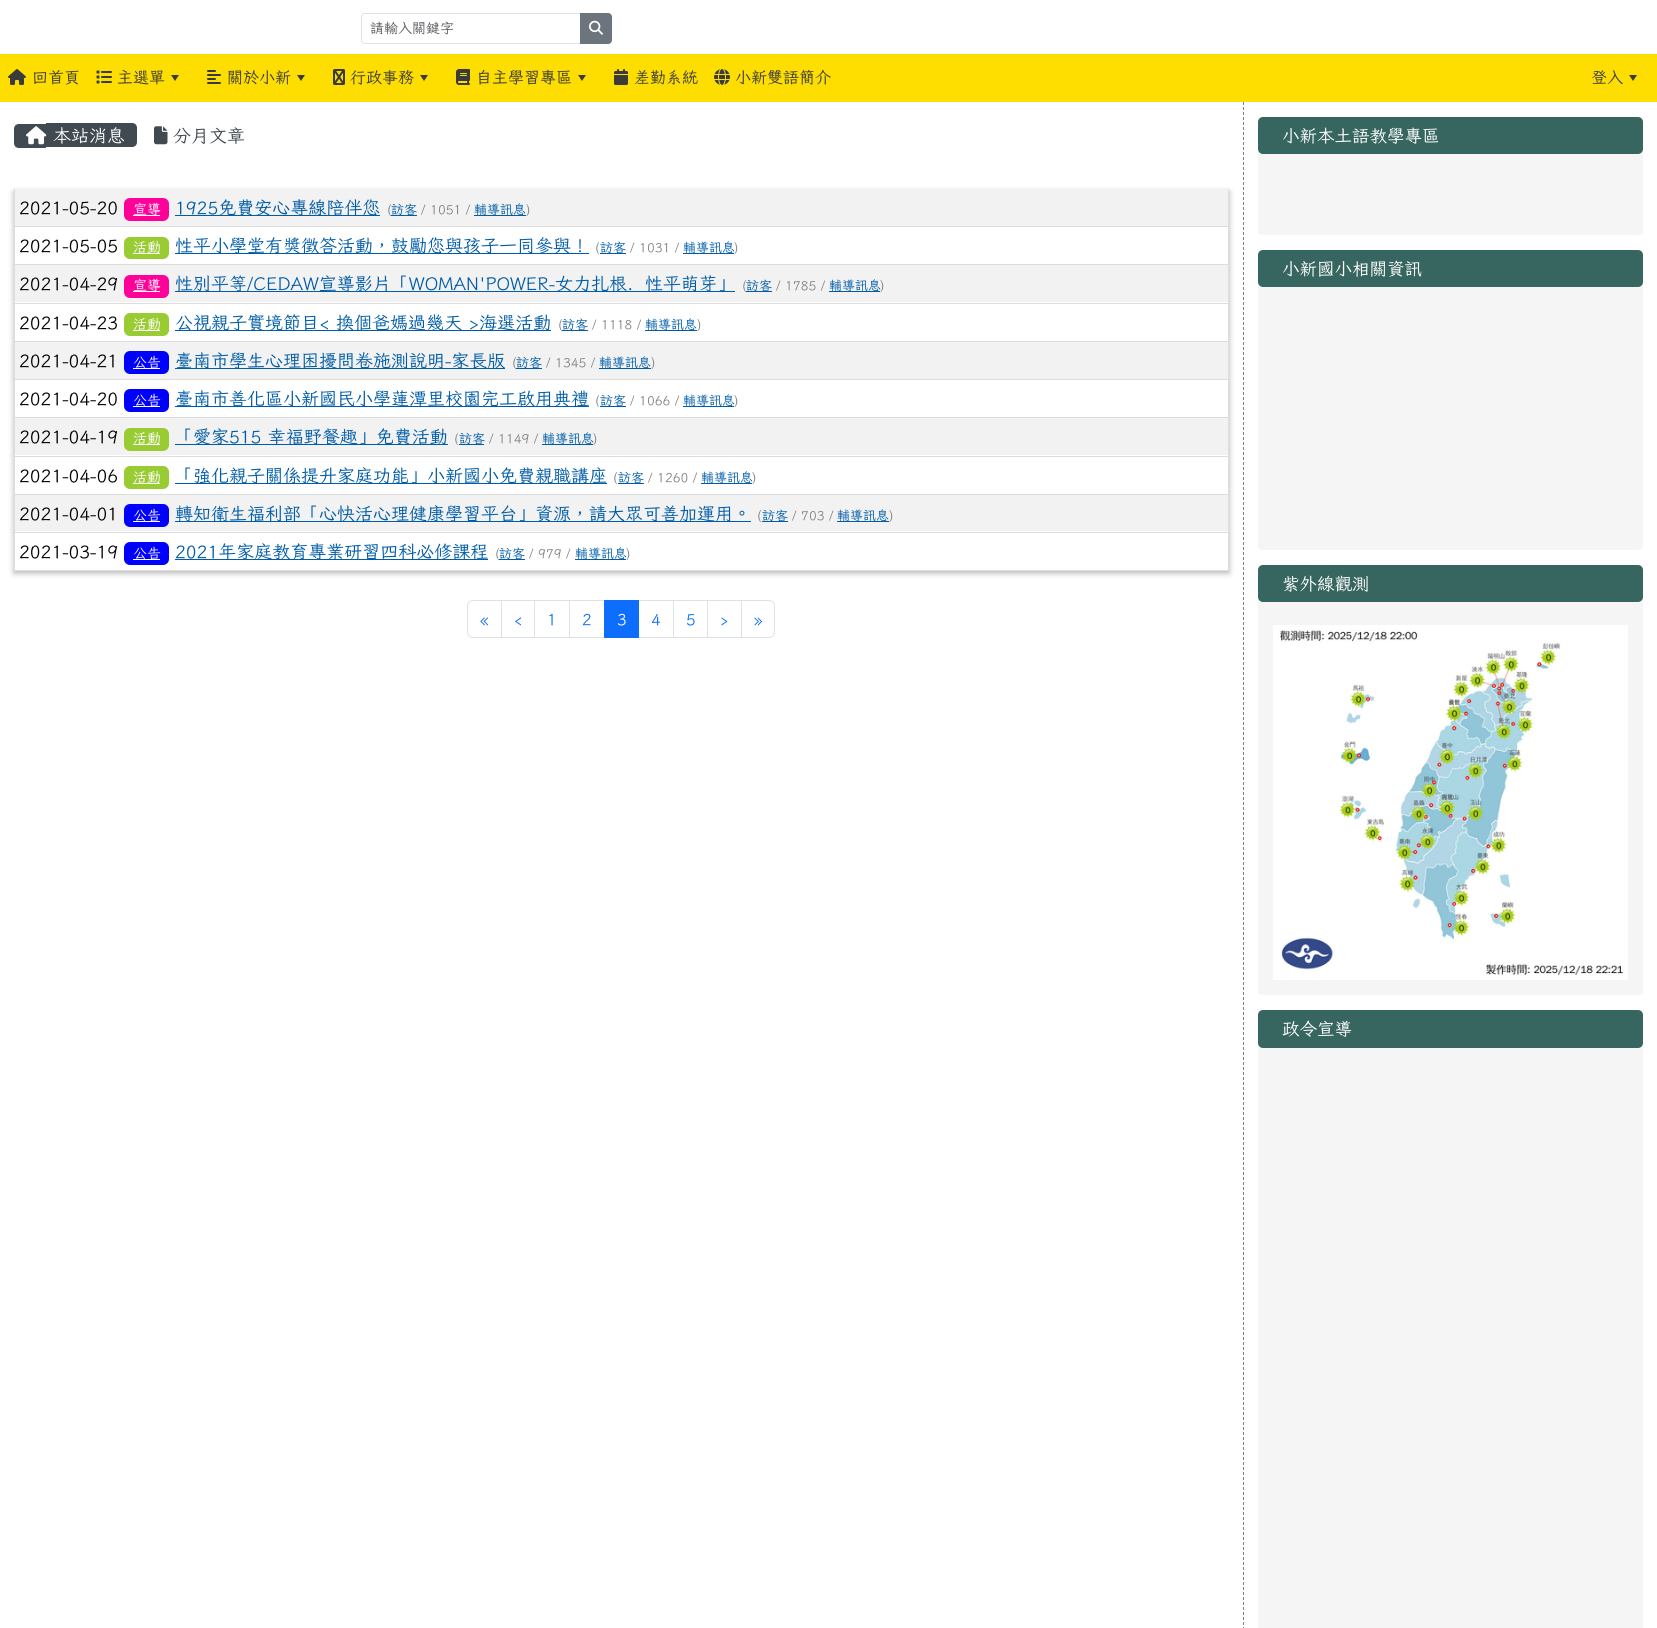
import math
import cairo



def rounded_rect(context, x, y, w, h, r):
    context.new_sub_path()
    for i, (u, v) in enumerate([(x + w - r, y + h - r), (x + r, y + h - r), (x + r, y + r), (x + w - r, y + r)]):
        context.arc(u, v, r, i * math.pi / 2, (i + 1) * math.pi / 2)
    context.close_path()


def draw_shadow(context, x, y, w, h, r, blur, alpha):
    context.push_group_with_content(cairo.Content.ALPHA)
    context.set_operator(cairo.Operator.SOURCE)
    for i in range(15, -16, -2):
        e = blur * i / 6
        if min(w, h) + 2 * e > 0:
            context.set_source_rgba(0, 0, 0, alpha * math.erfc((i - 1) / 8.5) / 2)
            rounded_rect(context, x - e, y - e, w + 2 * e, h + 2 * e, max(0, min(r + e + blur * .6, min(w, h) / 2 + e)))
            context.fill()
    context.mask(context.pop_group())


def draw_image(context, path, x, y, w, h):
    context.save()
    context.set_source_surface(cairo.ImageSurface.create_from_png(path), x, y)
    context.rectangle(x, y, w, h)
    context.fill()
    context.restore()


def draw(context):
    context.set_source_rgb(1, 1, 1)
    context.paint()
    context.new_path()
    context.move_to(365, 13.5)
    context.line_to(580.5, 13.5)
    context.line_to(580.5, 43.5)
    context.line_to(365, 43.5)
    context.curve_to(363, 43.5, 361.5, 42, 361.5, 40)
    context.line_to(361.5, 17)
    context.curve_to(361.5, 15, 363, 13.5, 365, 13.5)
    context.close_path()
    context.set_source_rgb(222 / 255, 226 / 255, 230 / 255)
    context.set_line_width(1)
    context.stroke()
    context.set_source_rgb(108 / 255, 117 / 255, 125 / 255)
    context.new_path()
    context.move_to(580.5, 13.5)
    context.line_to(608, 13.5)
    context.curve_to(610, 13.5, 611.5, 15, 611.5, 17)
    context.line_to(611.5, 40)
    context.curve_to(611.5, 42, 610, 43.5, 608, 43.5)
    context.line_to(580.5, 43.5)
    context.close_path()
    context.fill_preserve()
    context.stroke()
    draw_image(context, "images/1.png", 589, 20, 14, 15)
    context.set_source_rgb(254 / 255, 221 / 255, 0)
    context.rectangle(0, 54, 1657, 48)
    context.fill()
    draw_image(context, "images/2.png", 8, 69, 18, 16)
    draw_image(context, "images/3.png", 96, 70, 16, 14)
    context.set_source_rgb(59 / 255, 59 / 255, 59 / 255)
    context.new_path()
    context.move_to(171, 75)
    context.line_to(179, 75)
    context.line_to(175, 81)
    context.close_path()
    context.fill()
    draw_image(context, "images/4.png", 207, 70, 14, 14)
    context.new_path()
    context.move_to(297, 75)
    context.line_to(305, 75)
    context.line_to(301, 81)
    context.close_path()
    context.fill()
    draw_image(context, "images/5.png", 333, 69, 12, 16)
    context.new_path()
    context.move_to(420, 75)
    context.line_to(428, 75)
    context.line_to(424, 81)
    context.close_path()
    context.fill()
    draw_image(context, "images/6.png", 456, 69, 14, 16)
    context.new_path()
    context.move_to(578, 75)
    context.line_to(586, 75)
    context.line_to(582, 81)
    context.close_path()
    context.fill()
    draw_image(context, "images/7.png", 614, 69, 14, 16)
    draw_image(context, "images/8.png", 714, 69, 16, 16)
    context.new_path()
    context.move_to(1629, 75)
    context.line_to(1637, 75)
    context.line_to(1633, 81)
    context.close_path()
    context.fill()
    context.set_source_rgb(64 / 255, 74 / 255, 80 / 255)
    context.new_path()
    context.move_to(19, 124)
    context.line_to(46, 124)
    context.line_to(46, 148)
    context.line_to(19, 148)
    context.curve_to(16, 148, 14, 146, 14, 143)
    context.line_to(14, 129)
    context.curve_to(14, 126, 16, 124, 19, 124)
    context.close_path()
    context.fill()
    context.new_path()
    context.move_to(46, 123)
    context.line_to(132, 123)
    context.curve_to(135, 123, 137, 125, 137, 128)
    context.line_to(137, 142)
    context.curve_to(137, 145, 135, 147, 132, 147)
    context.line_to(46, 147)
    context.close_path()
    context.fill()
    draw_image(context, "images/9.png", 26, 126, 21, 19)
    draw_image(context, "images/10.png", 154, 126, 14, 19)
    context.save()
    context.set_fill_rule(cairo.FillRule.EVEN_ODD)
    context.new_path()
    context.move_to(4, 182)
    context.line_to(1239, 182)
    context.line_to(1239, 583)
    context.line_to(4, 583)
    context.close_path()
    context.move_to(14, 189)
    context.line_to(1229, 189)
    context.line_to(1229, 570)
    context.line_to(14, 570)
    context.close_path()
    context.clip()
    context.set_source_rgb(0, 0, 0)
    draw_shadow(context, 14, 192, 1215, 381, 0, 3, 0.3)
    context.restore()
    context.set_source_rgb(242 / 255, 242 / 255, 242 / 255)
    context.rectangle(15, 189, 1213, 37)
    context.fill()
    context.set_source_rgb(221 / 255, 221 / 255, 221 / 255)
    context.rectangle(1228, 189, 1, 382)
    context.fill()
    context.rectangle(14, 570, 1215, 1)
    context.fill()
    context.rectangle(14, 532, 1, 39)
    context.fill()
    context.rectangle(14, 532, 1215, 1)
    context.fill()
    context.rectangle(14, 494, 1, 39)
    context.fill()
    context.rectangle(14, 494, 1215, 1)
    context.fill()
    context.rectangle(14, 456, 1, 39)
    context.fill()
    context.rectangle(14, 456, 1215, 1)
    context.fill()
    context.rectangle(14, 417, 1, 40)
    context.fill()
    context.rectangle(14, 417, 1215, 1)
    context.fill()
    context.rectangle(14, 379, 1, 39)
    context.fill()
    context.rectangle(14, 379, 1215, 1)
    context.fill()
    context.rectangle(14, 341, 1, 39)
    context.fill()
    context.rectangle(14, 341, 1215, 1)
    context.fill()
    context.rectangle(14, 303, 1, 39)
    context.fill()
    context.rectangle(14, 303, 1215, 1)
    context.fill()
    context.rectangle(14, 264, 1, 40)
    context.fill()
    context.rectangle(14, 264, 1215, 1)
    context.fill()
    context.rectangle(14, 226, 1, 39)
    context.fill()
    context.rectangle(14, 226, 1215, 1)
    context.fill()
    context.rectangle(14, 189, 1, 38)
    context.fill()
    context.set_source_rgb(1, 0, 153 / 255)
    rounded_rect(context, 124, 198, 45, 23, 6)
    context.fill()
    context.set_source_rgb(1, 1, 1)
    context.rectangle(133, 215, 27, 1)
    context.fill()
    context.set_source_rgb(0, 92 / 255, 168 / 255)
    context.rectangle(175, 215, 205, 1)
    context.fill()
    context.rectangle(391, 215, 26, 1)
    context.fill()
    context.rectangle(474, 215, 52, 1)
    context.fill()
    context.set_source_rgb(153 / 255, 204 / 255, 51 / 255)
    rounded_rect(context, 124, 237, 45, 22, 6)
    context.fill()
    context.set_source_rgb(1, 1, 1)
    context.rectangle(133, 253, 27, 1)
    context.fill()
    context.set_source_rgb(0, 92 / 255, 168 / 255)
    context.rectangle(175, 253, 414, 1)
    context.fill()
    context.rectangle(600, 253, 26, 1)
    context.fill()
    context.rectangle(683, 253, 51, 1)
    context.fill()
    context.set_source_rgb(242 / 255, 242 / 255, 242 / 255)
    context.rectangle(15, 265, 1213, 37)
    context.fill()
    context.set_source_rgb(1, 0, 153 / 255)
    rounded_rect(context, 124, 275, 45, 23, 6)
    context.fill()
    context.set_source_rgb(1, 1, 1)
    context.rectangle(133, 291, 27, 1)
    context.fill()
    context.set_source_rgb(0, 92 / 255, 168 / 255)
    context.rectangle(175, 291, 560, 1)
    context.fill()
    context.rectangle(746, 291, 26, 1)
    context.fill()
    context.rectangle(829, 291, 51, 1)
    context.fill()
    context.set_source_rgb(153 / 255, 204 / 255, 51 / 255)
    rounded_rect(context, 124, 313, 45, 23, 6)
    context.fill()
    context.set_source_rgb(1, 1, 1)
    context.rectangle(133, 330, 27, 1)
    context.fill()
    context.set_source_rgb(0, 92 / 255, 168 / 255)
    context.rectangle(175, 330, 376, 1)
    context.fill()
    context.rectangle(562, 330, 26, 1)
    context.fill()
    context.rectangle(645, 330, 52, 1)
    context.fill()
    context.set_source_rgb(242 / 255, 242 / 255, 242 / 255)
    context.rectangle(15, 342, 1213, 37)
    context.fill()
    context.set_source_rgb(0, 0, 1)
    rounded_rect(context, 124, 351, 45, 23, 6)
    context.fill()
    context.set_source_rgb(1, 1, 1)
    context.rectangle(133, 368, 27, 1)
    context.fill()
    context.set_source_rgb(0, 92 / 255, 168 / 255)
    context.rectangle(175, 368, 330, 1)
    context.fill()
    context.rectangle(516, 368, 26, 1)
    context.fill()
    context.rectangle(599, 368, 52, 1)
    context.fill()
    context.set_source_rgb(0, 0, 1)
    rounded_rect(context, 124, 389, 45, 23, 6)
    context.fill()
    context.set_source_rgb(1, 1, 1)
    context.rectangle(133, 406, 27, 1)
    context.fill()
    context.set_source_rgb(0, 92 / 255, 168 / 255)
    context.rectangle(175, 406, 414, 1)
    context.fill()
    context.rectangle(600, 406, 26, 1)
    context.fill()
    context.rectangle(683, 406, 51, 1)
    context.fill()
    context.set_source_rgb(242 / 255, 242 / 255, 242 / 255)
    context.rectangle(15, 418, 1213, 37)
    context.fill()
    context.set_source_rgb(153 / 255, 204 / 255, 51 / 255)
    rounded_rect(context, 124, 428, 45, 23, 6)
    context.fill()
    context.set_source_rgb(1, 1, 1)
    context.rectangle(133, 444, 27, 1)
    context.fill()
    context.set_source_rgb(0, 92 / 255, 168 / 255)
    context.rectangle(175, 444, 273, 1)
    context.fill()
    context.rectangle(459, 444, 25, 1)
    context.fill()
    context.rectangle(542, 444, 51, 1)
    context.fill()
    context.set_source_rgb(153 / 255, 204 / 255, 51 / 255)
    rounded_rect(context, 124, 466, 45, 23, 6)
    context.fill()
    context.set_source_rgb(1, 1, 1)
    context.rectangle(133, 483, 27, 1)
    context.fill()
    context.set_source_rgb(0, 92 / 255, 168 / 255)
    context.rectangle(175, 483, 432, 1)
    context.fill()
    context.rectangle(618, 483, 26, 1)
    context.fill()
    context.rectangle(701, 483, 51, 1)
    context.fill()
    context.set_source_rgb(242 / 255, 242 / 255, 242 / 255)
    context.rectangle(15, 495, 1213, 36)
    context.fill()
    context.set_source_rgb(0, 0, 1)
    rounded_rect(context, 124, 504, 45, 23, 6)
    context.fill()
    context.set_source_rgb(1, 1, 1)
    context.rectangle(133, 521, 27, 1)
    context.fill()
    context.set_source_rgb(0, 92 / 255, 168 / 255)
    context.rectangle(175, 521, 576, 1)
    context.fill()
    context.rectangle(762, 521, 26, 1)
    context.fill()
    context.rectangle(837, 521, 52, 1)
    context.fill()
    context.set_source_rgb(0, 0, 1)
    rounded_rect(context, 124, 542, 45, 23, 6)
    context.fill()
    context.set_source_rgb(1, 1, 1)
    context.rectangle(133, 559, 27, 1)
    context.fill()
    context.set_source_rgb(0, 92 / 255, 168 / 255)
    context.rectangle(175, 559, 313, 1)
    context.fill()
    context.rectangle(499, 559, 26, 1)
    context.fill()
    context.rectangle(575, 559, 51, 1)
    context.fill()
    context.new_path()
    context.move_to(473, 600.5)
    context.line_to(501.5, 600.5)
    context.line_to(501.5, 637.5)
    context.line_to(473, 637.5)
    context.curve_to(470, 637.5, 467.5, 635, 467.5, 632)
    context.line_to(467.5, 606)
    context.curve_to(467.5, 603, 470, 600.5, 473, 600.5)
    context.close_path()
    context.set_source_rgb(222 / 255, 226 / 255, 230 / 255)
    context.stroke()
    context.rectangle(501.5, 600.5, 33, 37)
    context.stroke()
    context.rectangle(534.5, 600.5, 35, 37)
    context.stroke()
    context.rectangle(569.5, 600.5, 35, 37)
    context.stroke()
    context.rectangle(638.5, 600.5, 35, 37)
    context.stroke()
    context.set_source_rgb(13 / 255, 110 / 255, 253 / 255)
    context.rectangle(604, 600, 35, 38)
    context.fill()
    context.rectangle(673.5, 600.5, 34, 37)
    context.set_source_rgb(222 / 255, 226 / 255, 230 / 255)
    context.stroke()
    context.rectangle(707.5, 600.5, 34, 37)
    context.stroke()
    context.set_source_rgb(1, 1, 1)
    context.new_path()
    context.move_to(741.5, 600.5)
    context.line_to(769, 600.5)
    context.curve_to(772, 600.5, 774.5, 603, 774.5, 606)
    context.line_to(774.5, 632)
    context.curve_to(774.5, 635, 772, 637.5, 769, 637.5)
    context.line_to(741.5, 637.5)
    context.close_path()
    context.fill_preserve()
    context.set_source_rgb(222 / 255, 226 / 255, 230 / 255)
    context.stroke()
    context.new_path()
    context.move_to(1243.5, 102)
    context.line_to(1243.5, 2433)
    context.set_source_rgb(128 / 255, 128 / 255, 128 / 255)
    context.set_dash([3, 2])
    context.stroke()
    context.set_source_rgb(245 / 255, 245 / 255, 245 / 255)
    rounded_rect(context, 1258, 117, 385, 118, 4)
    context.fill()
    context.save()
    rounded_rect(context, 1258, 117, 385, 118, 4)
    context.clip()
    context.set_source_rgb(55 / 255, 102 / 255, 96 / 255)
    rounded_rect(context, 1258, 117, 385, 37, 5)
    context.fill()
    context.restore()
    rounded_rect(context, 1258, 250, 385, 300, 4)
    context.fill()
    context.save()
    rounded_rect(context, 1258, 250, 385, 300, 4)
    context.clip()
    context.set_source_rgb(55 / 255, 102 / 255, 96 / 255)
    rounded_rect(context, 1258, 250, 385, 37, 5)
    context.fill()
    context.restore()
    rounded_rect(context, 1258, 565, 385, 430, 4)
    context.fill()
    context.save()
    rounded_rect(context, 1258, 565, 385, 430, 4)
    context.clip()
    context.set_source_rgb(55 / 255, 102 / 255, 96 / 255)
    rounded_rect(context, 1258, 565, 385, 37, 5)
    context.fill()
    context.restore()
    draw_image(context, "images/11.png", 1273, 625, 355, 355)
    rounded_rect(context, 1258, 1010, 385, 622, 4)
    context.fill()
    context.save()
    rounded_rect(context, 1258, 1010, 385, 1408, 4)
    context.clip()
    context.set_source_rgb(55 / 255, 102 / 255, 96 / 255)
    rounded_rect(context, 1258, 1010, 385, 38, 5)
    context.fill()
    context.restore()
    context.select_font_face("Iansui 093")
    context.set_font_size(14)
    context.set_source_rgb(89 / 255, 92 / 255, 95 / 255)
    context.move_to(370, 33)
    context.show_text("請輸入關鍵字")
    context.set_font_size(16)
    context.set_source_rgb(59 / 255, 59 / 255, 59 / 255)
    context.move_to(32, 83)
    context.show_text("回首頁")
    context.move_to(117, 83)
    context.show_text("主選單")
    context.move_to(227, 83)
    context.show_text("關於小新")
    context.move_to(350, 83)
    context.show_text("行政事務")
    context.move_to(476, 83)
    context.show_text("自主學習專區")
    context.move_to(634, 83)
    context.show_text("差勤系統")
    context.move_to(735, 83)
    context.show_text("小新雙語簡介")
    context.move_to(1591, 83)
    context.show_text("登入")
    context.set_font_size(18)
    context.set_source_rgb(1, 1, 1)
    context.move_to(53, 142)
    context.show_text("本站消息")
    context.set_source_rgb(64 / 255, 74 / 255, 80 / 255)
    context.move_to(173, 142)
    context.show_text("分月文章")
    context.set_source_rgb(0, 0, 0)
    context.move_to(19, 214)
    context.show_text("2021-05-20")
    context.set_font_size(14)
    context.set_source_rgb(1, 1, 1)
    context.move_to(133, 214)
    context.show_text("宣導")
    context.set_font_size(18)
    context.set_source_rgb(0, 92 / 255, 168 / 255)
    context.move_to(175, 214)
    context.show_text("1925免費安心專線陪伴您")
    context.set_font_size(13)
    context.set_source_rgb(128 / 255, 128 / 255, 128 / 255)
    context.move_to(387, 214)
    context.show_text("(")
    context.set_source_rgb(0, 92 / 255, 168 / 255)
    context.move_to(391, 214)
    context.show_text("訪客")
    context.set_source_rgb(128 / 255, 128 / 255, 128 / 255)
    context.move_to(421, 214)
    context.show_text("/ 1051 /")
    context.set_source_rgb(0, 92 / 255, 168 / 255)
    context.move_to(474, 214)
    context.show_text("輔導訊息")
    context.set_source_rgb(128 / 255, 128 / 255, 128 / 255)
    context.move_to(526, 214)
    context.show_text(")")
    context.set_font_size(18)
    context.set_source_rgb(0, 0, 0)
    context.move_to(19, 252)
    context.show_text("2021-05-05")
    context.set_font_size(14)
    context.set_source_rgb(1, 1, 1)
    context.move_to(133, 252)
    context.show_text("活動")
    context.set_font_size(18)
    context.set_source_rgb(0, 92 / 255, 168 / 255)
    context.move_to(175, 252)
    context.show_text("性平小學堂有獎徵答活動，鼓勵您與孩子一同參與！")
    context.set_font_size(13)
    context.set_source_rgb(128 / 255, 128 / 255, 128 / 255)
    context.move_to(595, 252)
    context.show_text("(")
    context.set_source_rgb(0, 92 / 255, 168 / 255)
    context.move_to(600, 252)
    context.show_text("訪客")
    context.set_source_rgb(128 / 255, 128 / 255, 128 / 255)
    context.move_to(630, 252)
    context.show_text("/ 1031 /")
    context.set_source_rgb(0, 92 / 255, 168 / 255)
    context.move_to(683, 252)
    context.show_text("輔導訊息")
    context.set_source_rgb(128 / 255, 128 / 255, 128 / 255)
    context.move_to(734, 252)
    context.show_text(")")
    context.set_font_size(18)
    context.set_source_rgb(0, 0, 0)
    context.move_to(19, 290)
    context.show_text("2021-04-29")
    context.set_font_size(14)
    context.set_source_rgb(1, 1, 1)
    context.move_to(133, 290)
    context.show_text("宣導")
    context.set_font_size(18)
    context.set_source_rgb(0, 92 / 255, 168 / 255)
    context.move_to(175, 290)
    context.show_text("性別平等/CEDAW宣導影片「WOMAN'POWER-女力扎根．性平萌芽」")
    context.set_font_size(13)
    context.set_source_rgb(128 / 255, 128 / 255, 128 / 255)
    context.move_to(742, 290)
    context.show_text("(")
    context.set_source_rgb(0, 92 / 255, 168 / 255)
    context.move_to(746, 290)
    context.show_text("訪客")
    context.set_source_rgb(128 / 255, 128 / 255, 128 / 255)
    context.move_to(776, 290)
    context.show_text("/ 1785 /")
    context.set_source_rgb(0, 92 / 255, 168 / 255)
    context.move_to(829, 290)
    context.show_text("輔導訊息")
    context.set_source_rgb(128 / 255, 128 / 255, 128 / 255)
    context.move_to(880, 290)
    context.show_text(")")
    context.set_font_size(18)
    context.set_source_rgb(0, 0, 0)
    context.move_to(19, 329)
    context.show_text("2021-04-23")
    context.set_font_size(14)
    context.set_source_rgb(1, 1, 1)
    context.move_to(133, 329)
    context.show_text("活動")
    context.set_font_size(18)
    context.set_source_rgb(0, 92 / 255, 168 / 255)
    context.move_to(175, 329)
    context.show_text("公視親子實境節目< 換個爸媽過幾天 >海選活動")
    context.set_font_size(13)
    context.set_source_rgb(128 / 255, 128 / 255, 128 / 255)
    context.move_to(558, 329)
    context.show_text("(")
    context.set_source_rgb(0, 92 / 255, 168 / 255)
    context.move_to(562, 329)
    context.show_text("訪客")
    context.set_source_rgb(128 / 255, 128 / 255, 128 / 255)
    context.move_to(592, 329)
    context.show_text("/ 1118 /")
    context.set_source_rgb(0, 92 / 255, 168 / 255)
    context.move_to(645, 329)
    context.show_text("輔導訊息")
    context.set_source_rgb(128 / 255, 128 / 255, 128 / 255)
    context.move_to(697, 329)
    context.show_text(")")
    context.set_font_size(18)
    context.set_source_rgb(0, 0, 0)
    context.move_to(19, 367)
    context.show_text("2021-04-21")
    context.set_font_size(14)
    context.set_source_rgb(1, 1, 1)
    context.move_to(133, 367)
    context.show_text("公告")
    context.set_font_size(18)
    context.set_source_rgb(0, 92 / 255, 168 / 255)
    context.move_to(175, 367)
    context.show_text("臺南市學生心理困擾問卷施測說明-家長版")
    context.set_font_size(13)
    context.set_source_rgb(128 / 255, 128 / 255, 128 / 255)
    context.move_to(512, 367)
    context.show_text("(")
    context.set_source_rgb(0, 92 / 255, 168 / 255)
    context.move_to(516, 367)
    context.show_text("訪客")
    context.set_source_rgb(128 / 255, 128 / 255, 128 / 255)
    context.move_to(546, 367)
    context.show_text("/ 1345 /")
    context.set_source_rgb(0, 92 / 255, 168 / 255)
    context.move_to(599, 367)
    context.show_text("輔導訊息")
    context.set_source_rgb(128 / 255, 128 / 255, 128 / 255)
    context.move_to(651, 367)
    context.show_text(")")
    context.set_font_size(18)
    context.set_source_rgb(0, 0, 0)
    context.move_to(19, 405)
    context.show_text("2021-04-20")
    context.set_font_size(14)
    context.set_source_rgb(1, 1, 1)
    context.move_to(133, 405)
    context.show_text("公告")
    context.set_font_size(18)
    context.set_source_rgb(0, 92 / 255, 168 / 255)
    context.move_to(175, 405)
    context.show_text("臺南市善化區小新國民小學蓮潭里校園完工啟用典禮")
    context.set_font_size(13)
    context.set_source_rgb(128 / 255, 128 / 255, 128 / 255)
    context.move_to(595, 405)
    context.show_text("(")
    context.set_source_rgb(0, 92 / 255, 168 / 255)
    context.move_to(600, 405)
    context.show_text("訪客")
    context.set_source_rgb(128 / 255, 128 / 255, 128 / 255)
    context.move_to(630, 405)
    context.show_text("/ 1066 /")
    context.set_source_rgb(0, 92 / 255, 168 / 255)
    context.move_to(683, 405)
    context.show_text("輔導訊息")
    context.set_source_rgb(128 / 255, 128 / 255, 128 / 255)
    context.move_to(734, 405)
    context.show_text(")")
    context.set_font_size(18)
    context.set_source_rgb(0, 0, 0)
    context.move_to(19, 443)
    context.show_text("2021-04-19")
    context.set_font_size(14)
    context.set_source_rgb(1, 1, 1)
    context.move_to(133, 443)
    context.show_text("活動")
    context.set_font_size(18)
    context.set_source_rgb(0, 92 / 255, 168 / 255)
    context.move_to(175, 443)
    context.show_text("「愛家515 幸福野餐趣」免費活動")
    context.set_font_size(13)
    context.set_source_rgb(128 / 255, 128 / 255, 128 / 255)
    context.move_to(454, 443)
    context.show_text("(")
    context.set_source_rgb(0, 92 / 255, 168 / 255)
    context.move_to(459, 443)
    context.show_text("訪客")
    context.set_source_rgb(128 / 255, 128 / 255, 128 / 255)
    context.move_to(489, 443)
    context.show_text("/ 1149 /")
    context.set_source_rgb(0, 92 / 255, 168 / 255)
    context.move_to(542, 443)
    context.show_text("輔導訊息")
    context.set_source_rgb(128 / 255, 128 / 255, 128 / 255)
    context.move_to(593, 443)
    context.show_text(")")
    context.set_font_size(18)
    context.set_source_rgb(0, 0, 0)
    context.move_to(19, 482)
    context.show_text("2021-04-06")
    context.set_font_size(14)
    context.set_source_rgb(1, 1, 1)
    context.move_to(133, 482)
    context.show_text("活動")
    context.set_font_size(18)
    context.set_source_rgb(0, 92 / 255, 168 / 255)
    context.move_to(175, 482)
    context.show_text("「強化親子關係提升家庭功能」小新國小免費親職講座")
    context.set_font_size(13)
    context.set_source_rgb(128 / 255, 128 / 255, 128 / 255)
    context.move_to(613, 482)
    context.show_text("(")
    context.set_source_rgb(0, 92 / 255, 168 / 255)
    context.move_to(618, 482)
    context.show_text("訪客")
    context.set_source_rgb(128 / 255, 128 / 255, 128 / 255)
    context.move_to(648, 482)
    context.show_text("/ 1260 /")
    context.set_source_rgb(0, 92 / 255, 168 / 255)
    context.move_to(701, 482)
    context.show_text("輔導訊息")
    context.set_source_rgb(128 / 255, 128 / 255, 128 / 255)
    context.move_to(752, 482)
    context.show_text(")")
    context.set_font_size(18)
    context.set_source_rgb(0, 0, 0)
    context.move_to(19, 520)
    context.show_text("2021-04-01")
    context.set_font_size(14)
    context.set_source_rgb(1, 1, 1)
    context.move_to(133, 520)
    context.show_text("公告")
    context.set_font_size(18)
    context.set_source_rgb(0, 92 / 255, 168 / 255)
    context.move_to(175, 520)
    context.show_text("轉知衛生福利部「心快活心理健康學習平台」資源，請大眾可善加運用。")
    context.set_font_size(13)
    context.set_source_rgb(128 / 255, 128 / 255, 128 / 255)
    context.move_to(757, 520)
    context.show_text("(")
    context.set_source_rgb(0, 92 / 255, 168 / 255)
    context.move_to(762, 520)
    context.show_text("訪客")
    context.set_source_rgb(128 / 255, 128 / 255, 128 / 255)
    context.move_to(792, 520)
    context.show_text("/ 703 /")
    context.set_source_rgb(0, 92 / 255, 168 / 255)
    context.move_to(837, 520)
    context.show_text("輔導訊息")
    context.set_source_rgb(128 / 255, 128 / 255, 128 / 255)
    context.move_to(889, 520)
    context.show_text(")")
    context.set_font_size(18)
    context.set_source_rgb(0, 0, 0)
    context.move_to(19, 558)
    context.show_text("2021-03-19")
    context.set_font_size(14)
    context.set_source_rgb(1, 1, 1)
    context.move_to(133, 558)
    context.show_text("公告")
    context.set_font_size(18)
    context.set_source_rgb(0, 92 / 255, 168 / 255)
    context.move_to(175, 558)
    context.show_text("2021年家庭教育專業研習四科必修課程")
    context.set_font_size(13)
    context.set_source_rgb(128 / 255, 128 / 255, 128 / 255)
    context.move_to(495, 558)
    context.show_text("(")
    context.set_source_rgb(0, 92 / 255, 168 / 255)
    context.move_to(499, 558)
    context.show_text("訪客")
    context.set_source_rgb(128 / 255, 128 / 255, 128 / 255)
    context.move_to(529, 558)
    context.show_text("/ 979 /")
    context.set_source_rgb(0, 92 / 255, 168 / 255)
    context.move_to(575, 558)
    context.show_text("輔導訊息")
    context.set_source_rgb(128 / 255, 128 / 255, 128 / 255)
    context.move_to(626, 558)
    context.show_text(")")
    context.set_font_size(16)
    context.set_source_rgb(13 / 255, 110 / 255, 253 / 255)
    context.move_to(480, 625)
    context.show_text("«")
    context.move_to(514, 625)
    context.show_text("‹")
    context.move_to(547, 625)
    context.show_text("1")
    context.move_to(582, 625)
    context.show_text("2")
    context.set_source_rgb(1, 1, 1)
    context.move_to(617, 625)
    context.show_text("3")
    context.set_source_rgb(13 / 255, 110 / 255, 253 / 255)
    context.move_to(651, 625)
    context.show_text("4")
    context.move_to(686, 625)
    context.show_text("5")
    context.move_to(720, 625)
    context.show_text("›")
    context.move_to(754, 625)
    context.show_text("»")
    context.set_font_size(17.5)
    context.set_source_rgb(1, 1, 1)
    context.move_to(1282, 142)
    context.show_text("小新本土語教學專區")
    context.move_to(1282, 275)
    context.show_text("小新國小相關資訊")
    context.move_to(1282, 590)
    context.show_text("紫外線觀測")
    context.move_to(1282, 1035)
    context.show_text("政令宣導")


surface = cairo.ImageSurface(cairo.Format.RGB24, 1657, 1628)
context = cairo.Context(surface)
options = cairo.FontOptions()
options.set_hint_metrics(cairo.HintMetrics.OFF)
options.set_hint_style(cairo.HintStyle.NONE)
context.set_font_options(options)
context.set_miter_limit(4)
draw(context)
surface.write_to_png("out.png")
